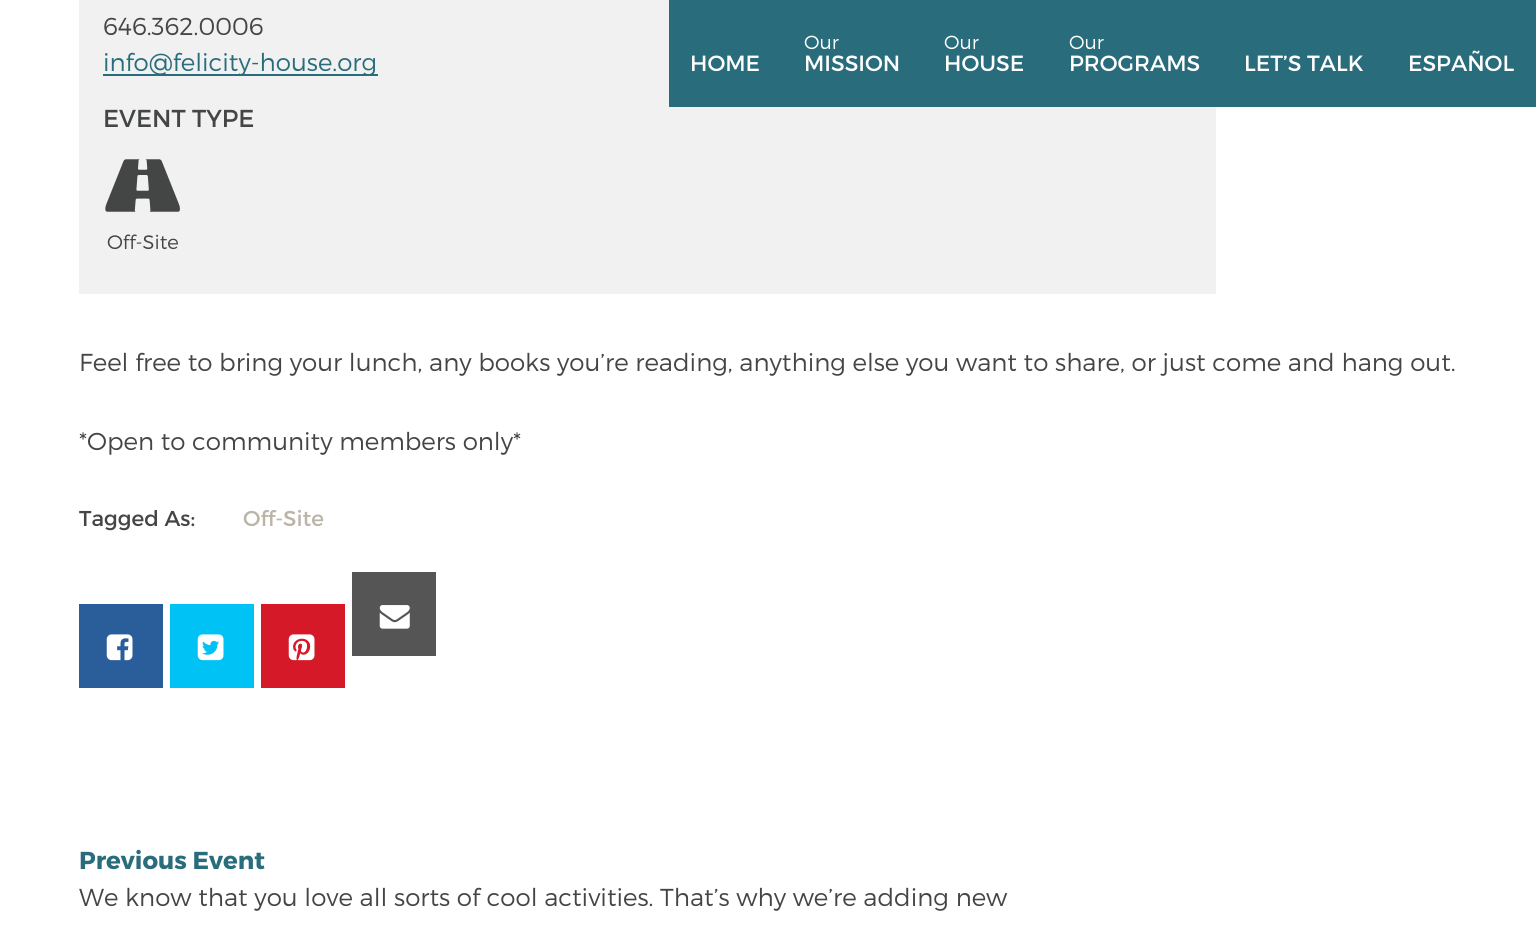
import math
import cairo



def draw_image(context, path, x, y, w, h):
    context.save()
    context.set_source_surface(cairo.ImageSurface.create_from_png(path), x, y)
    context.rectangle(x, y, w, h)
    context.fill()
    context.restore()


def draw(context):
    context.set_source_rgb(1, 1, 1)
    context.paint()
    context.set_source_rgb(241 / 255, 241 / 255, 241 / 255)
    context.rectangle(79, 0, 1137, 294)
    context.fill()
    context.set_source_rgb(41 / 255, 108 / 255, 124 / 255)
    context.rectangle(103, 74, 275, 2)
    context.fill()
    draw_image(context, "images/1.png", 105, 159, 75, 53)
    context.set_source_rgb(42 / 255, 94 / 255, 155 / 255)
    context.rectangle(79, 604, 84, 84)
    context.fill()
    draw_image(context, "images/2.png", 106, 634, 27, 27)
    context.set_source_rgb(0, 194 / 255, 245 / 255)
    context.rectangle(170, 604, 84, 84)
    context.fill()
    draw_image(context, "images/3.png", 197, 634, 27, 27)
    context.set_source_rgb(213 / 255, 25 / 255, 40 / 255)
    context.rectangle(261, 604, 84, 84)
    context.fill()
    draw_image(context, "images/4.png", 288, 634, 27, 27)
    context.set_source_rgb(85 / 255, 85 / 255, 85 / 255)
    context.rectangle(352, 572, 84, 84)
    context.fill()
    draw_image(context, "images/5.png", 379, 605, 31, 24)
    context.set_source_rgb(41 / 255, 108 / 255, 124 / 255)
    context.rectangle(669, 0, 867, 107)
    context.fill()
    context.select_font_face("Montserrat Light")
    context.set_font_size(24.5)
    context.set_source_rgb(68 / 255, 69 / 255, 69 / 255)
    context.move_to(103, 35)
    context.show_text("646.362.0006")
    context.set_source_rgb(41 / 255, 108 / 255, 124 / 255)
    context.move_to(103, 71)
    context.show_text("info@felicity-house.org")
    context.select_font_face("Montserrat")
    context.set_source_rgb(68 / 255, 69 / 255, 69 / 255)
    context.move_to(103, 127)
    context.show_text("EVENT TYPE")
    context.select_font_face("Montserrat Light")
    context.set_font_size(19.5)
    context.move_to(107, 249)
    context.show_text("Off-Site")
    context.set_font_size(24.5)
    context.move_to(79, 371)
    context.show_text("Feel free to bring your lunch, any books you’re reading, anything else you want to share, or just come and hang out.")
    context.move_to(79, 450)
    context.show_text("*Open to community members only*")
    context.select_font_face("Montserrat")
    context.set_font_size(21.5)
    context.move_to(79, 526)
    context.show_text("Tagged As:")
    context.set_source_rgb(187 / 255, 181 / 255, 168 / 255)
    context.move_to(243, 526)
    context.show_text("Off-Site")
    context.select_font_face("Montserrat", cairo.FontSlant.NORMAL, cairo.FontWeight.BOLD)
    context.set_font_size(24.5)
    context.set_source_rgb(41 / 255, 108 / 255, 124 / 255)
    context.move_to(79, 869)
    context.show_text("Previous Event")
    context.select_font_face("Montserrat Light")
    context.set_source_rgb(68 / 255, 69 / 255, 69 / 255)
    context.move_to(79, 906)
    context.show_text("We know that you love all sorts of cool activities. That’s why we’re adding new")
    context.select_font_face("Montserrat")
    context.set_font_size(22)
    context.set_source_rgb(1, 1, 1)
    context.move_to(690, 71)
    context.show_text("HOME")
    context.select_font_face("Montserrat Light")
    context.set_font_size(19)
    context.move_to(804, 49)
    context.show_text("Our")
    context.select_font_face("Montserrat")
    context.set_font_size(22)
    context.move_to(804, 71)
    context.show_text("MISSION")
    context.select_font_face("Montserrat Light")
    context.set_font_size(19)
    context.move_to(944, 49)
    context.show_text("Our")
    context.select_font_face("Montserrat")
    context.set_font_size(22)
    context.move_to(944, 71)
    context.show_text("HOUSE")
    context.select_font_face("Montserrat Light")
    context.set_font_size(19)
    context.move_to(1069, 49)
    context.show_text("Our")
    context.select_font_face("Montserrat")
    context.set_font_size(22)
    context.move_to(1069, 71)
    context.show_text("PROGRAMS")
    context.move_to(1244, 71)
    context.show_text("LET’S TALK")
    context.move_to(1408, 71)
    context.show_text("ESPAÑOL")


surface = cairo.ImageSurface(cairo.Format.RGB24, 1536, 930)
context = cairo.Context(surface)
options = cairo.FontOptions()
options.set_hint_metrics(cairo.HintMetrics.OFF)
options.set_hint_style(cairo.HintStyle.NONE)
context.set_font_options(options)
context.set_miter_limit(4)
draw(context)
surface.write_to_png("out.png")
